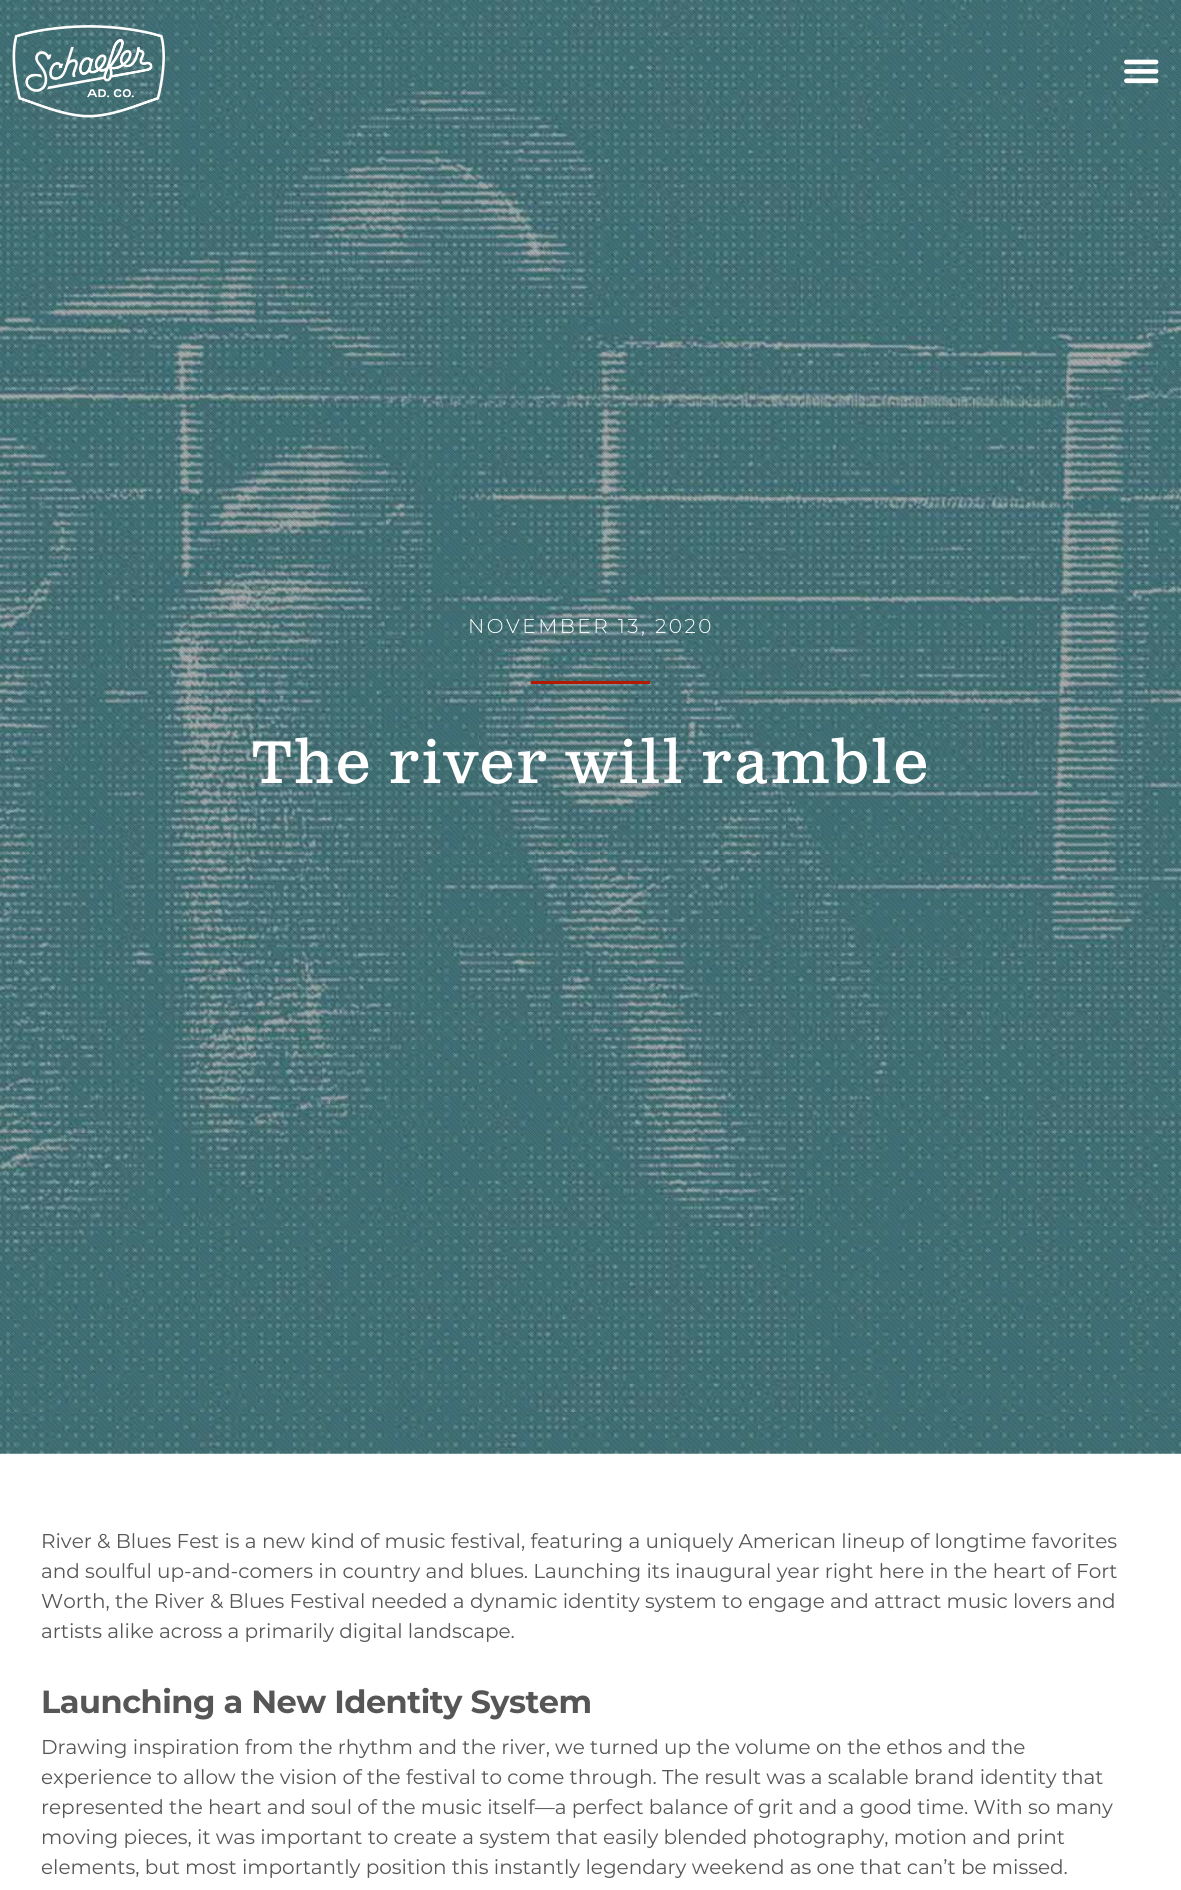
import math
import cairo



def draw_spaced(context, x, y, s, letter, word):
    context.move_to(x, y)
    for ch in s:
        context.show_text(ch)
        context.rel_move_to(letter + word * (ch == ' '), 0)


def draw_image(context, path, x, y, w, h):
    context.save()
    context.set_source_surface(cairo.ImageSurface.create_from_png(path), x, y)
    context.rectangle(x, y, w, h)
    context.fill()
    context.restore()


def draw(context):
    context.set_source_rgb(1, 1, 1)
    context.paint()
    draw_image(context, "images/3.png", 0, 0, 1181, 1454)
    draw_image(context, "images/4.png", 0, 0, 1181, 1454)
    draw_image(context, "images/1.png", 12, 25, 153, 93)
    draw_image(context, "images/2.png", 1124, 59, 35, 25)
    context.set_source_rgb(178 / 255, 27 / 255, 1 / 255)
    context.rectangle(531, 681, 119, 3)
    context.fill()
    context.select_font_face("Montserrat Light")
    context.set_font_size(20)
    context.set_source_rgb(1, 1, 1)
    draw_spaced(context, 468, 633, "NOVEMBER 13, 2020", 2.5, 0)
    context.select_font_face("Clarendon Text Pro")
    context.set_font_size(60)
    draw_spaced(context, 252, 783, "The river will ramble", 2.5, 0)
    context.select_font_face("Montserrat")
    context.set_font_size(20)
    context.set_source_rgb(86 / 255, 86 / 255, 86 / 255)
    context.move_to(41, 1548)
    context.show_text("River & Blues Fest is a new kind of music festival, featuring a uniquely American lineup of longtime favorites")
    context.move_to(41, 1578)
    context.show_text("and soulful up-and-comers in country and blues. Launching its inaugural year right here in the heart of Fort")
    context.move_to(41, 1608)
    context.show_text("Worth, the River & Blues Festival needed a dynamic identity system to engage and attract music lovers and")
    context.move_to(41, 1638)
    context.show_text("artists alike across a primarily digital landscape.")
    context.select_font_face("Montserrat", cairo.FontSlant.NORMAL, cairo.FontWeight.BOLD)
    context.set_font_size(32)
    draw_spaced(context, 41, 1713, "Launching a New Identity System", -0.5, 0)
    context.select_font_face("Montserrat")
    context.set_font_size(20)
    context.move_to(41, 1754)
    context.show_text("Drawing inspiration from the rhythm and the river, we turned up the volume on the ethos and the")
    context.move_to(41, 1784)
    context.show_text("experience to allow the vision of the festival to come through. The result was a scalable brand identity that")
    context.move_to(41, 1814)
    context.show_text("represented the heart and soul of the music itself—a perfect balance of grit and a good time. With so many")
    context.move_to(41, 1844)
    context.show_text("moving pieces, it was important to create a system that easily blended photography, motion and print")
    context.move_to(41, 1874)
    context.show_text("elements, but most importantly position this instantly legendary weekend as one that can’t be missed.")


surface = cairo.ImageSurface(cairo.Format.RGB24, 1181, 1890)
context = cairo.Context(surface)
options = cairo.FontOptions()
options.set_hint_metrics(cairo.HintMetrics.OFF)
options.set_hint_style(cairo.HintStyle.NONE)
context.set_font_options(options)
context.set_miter_limit(4)
draw(context)
surface.write_to_png("out.png")
